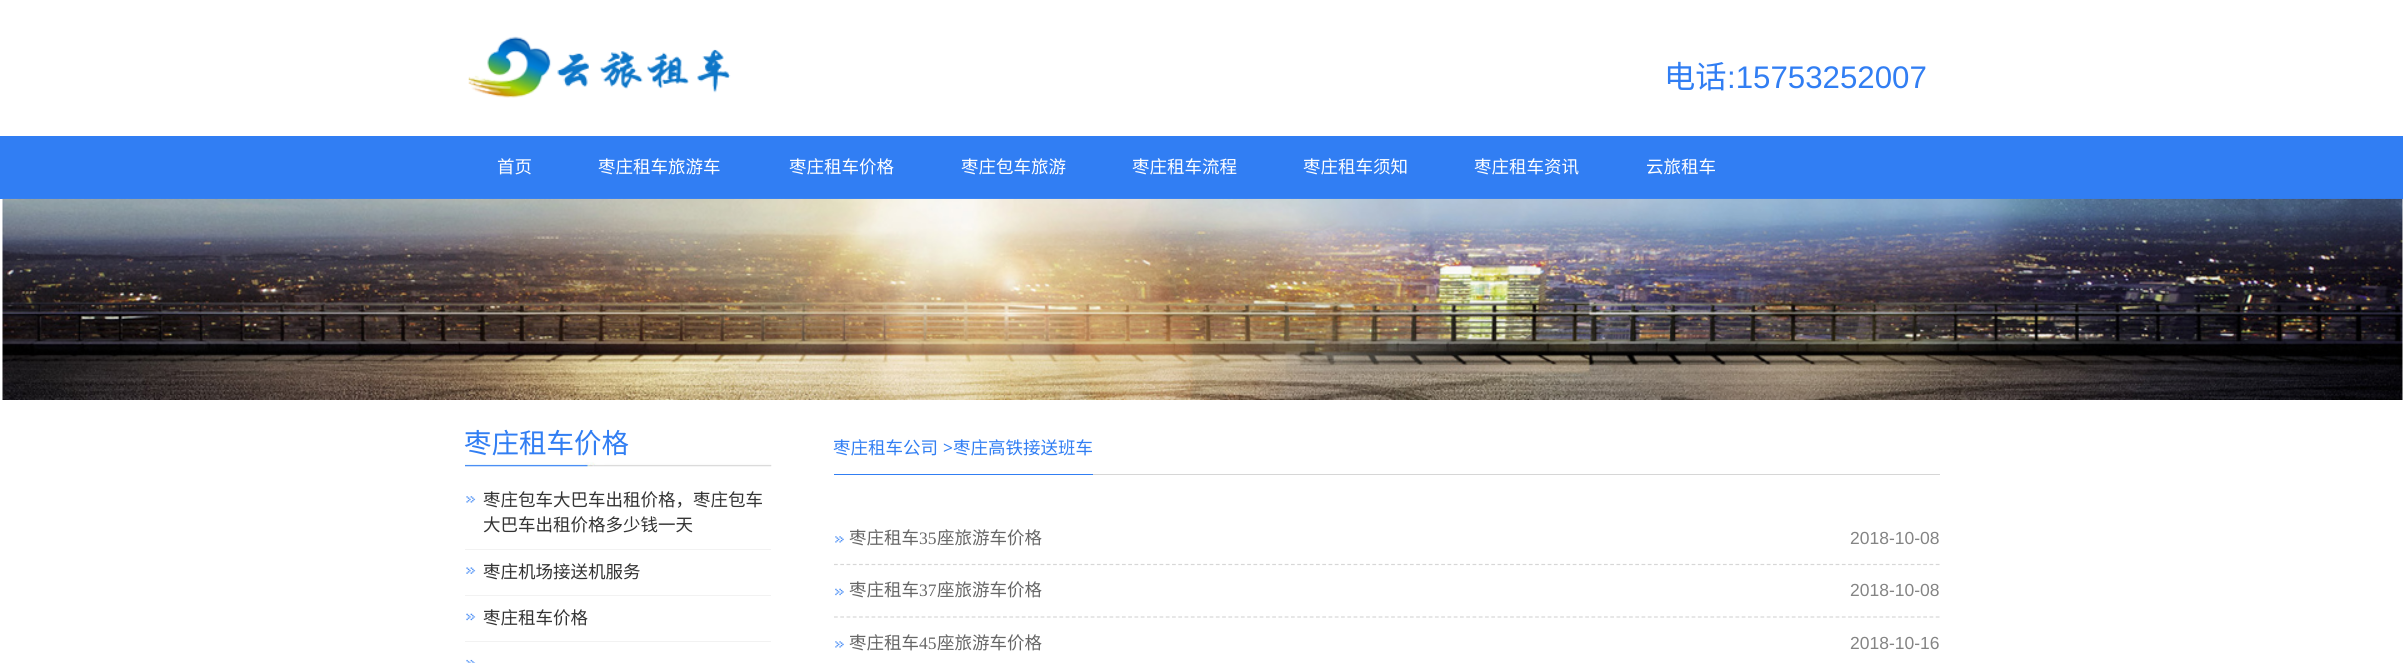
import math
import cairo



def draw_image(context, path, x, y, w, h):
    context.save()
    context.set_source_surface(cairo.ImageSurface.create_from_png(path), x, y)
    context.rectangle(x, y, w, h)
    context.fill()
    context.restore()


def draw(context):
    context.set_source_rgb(1, 1, 1)
    context.paint()
    draw_image(context, "images/1.png", 468, 36, 263, 62)
    context.set_source_rgb(49 / 255, 126 / 255, 243 / 255)
    context.rectangle(0, 136, 2403, 63)
    context.fill()
    draw_image(context, "images/2.png", 2, 198, 2401, 202)
    draw_image(context, "images/3.png", 465, 462, 307, 5)
    draw_image(context, "images/4.png", 466, 496, 10, 7)
    context.set_source_rgb(242 / 255, 242 / 255, 242 / 255)
    context.rectangle(465, 549, 306, 1)
    context.fill()
    draw_image(context, "images/5.png", 466, 567, 10, 7)
    context.rectangle(465, 595, 306, 1)
    context.fill()
    draw_image(context, "images/6.png", 466, 613, 10, 8)
    context.rectangle(465, 641, 306, 1)
    context.fill()
    draw_image(context, "images/7.png", 466, 659, 10, 4)
    context.set_source_rgb(214 / 255, 214 / 255, 214 / 255)
    context.rectangle(1093, 474, 847, 1)
    context.fill()
    context.set_source_rgb(49 / 255, 126 / 255, 243 / 255)
    context.rectangle(834, 474, 259, 1)
    context.fill()
    draw_image(context, "images/8.png", 835, 536, 9, 7)
    context.new_path()
    context.move_to(834, 564.5)
    context.line_to(1940, 564.5)
    context.set_source_rgb(215 / 255, 215 / 255, 215 / 255)
    context.set_line_width(1.2)
    context.set_dash([3.75, 2.51])
    context.stroke()
    draw_image(context, "images/9.png", 835, 588, 9, 8)
    context.new_path()
    context.move_to(834, 617)
    context.line_to(1940, 617)
    context.stroke()
    draw_image(context, "images/8.png", 835, 641, 9, 7)
    context.select_font_face("Noto Sans CJK SC")
    context.set_font_size(31.25)
    context.set_source_rgb(49 / 255, 126 / 255, 243 / 255)
    context.move_to(1664, 88)
    context.show_text("电话")
    context.select_font_face("Liberation Sans")
    context.move_to(1727, 88)
    context.show_text(":15753252007")
    context.select_font_face("Noto Sans CJK SC")
    context.set_font_size(17.5)
    context.set_source_rgb(1, 1, 1)
    context.move_to(497, 173)
    context.show_text("首页")
    context.move_to(598, 173)
    context.show_text("枣庄租车旅游车")
    context.move_to(789, 173)
    context.show_text("枣庄租车价格")
    context.move_to(961, 173)
    context.show_text("枣庄包车旅游")
    context.move_to(1132, 173)
    context.show_text("枣庄租车流程")
    context.move_to(1303, 173)
    context.show_text("枣庄租车须知")
    context.move_to(1474, 173)
    context.show_text("枣庄租车资讯")
    context.move_to(1646, 173)
    context.show_text("云旅租车")
    context.set_font_size(27.5)
    context.set_source_rgb(49 / 255, 126 / 255, 243 / 255)
    context.move_to(464, 453)
    context.show_text("枣庄租车价格")
    context.set_font_size(17.5)
    context.set_source_rgb(51 / 255, 51 / 255, 51 / 255)
    context.move_to(483, 506)
    context.show_text("枣庄包车大巴车出租价格，枣庄包车")
    context.move_to(483, 531)
    context.show_text("大巴车出租价格多少钱一天")
    context.move_to(483, 578)
    context.show_text("枣庄机场接送机服务")
    context.move_to(483, 624)
    context.show_text("枣庄租车价格")
    context.set_source_rgb(49 / 255, 126 / 255, 243 / 255)
    context.move_to(833, 454)
    context.show_text("枣庄租车公司")
    context.select_font_face("Open Sans")
    context.move_to(943, 454)
    context.show_text(">")
    context.select_font_face("Noto Sans CJK SC")
    context.move_to(953, 454)
    context.show_text("枣庄高铁接送班车")
    context.set_source_rgb(102 / 255, 102 / 255, 102 / 255)
    context.move_to(849, 544)
    context.show_text("枣庄租车")
    context.select_font_face("Liberation Serif")
    context.move_to(919, 544)
    context.show_text("35")
    context.select_font_face("Noto Sans CJK SC")
    context.move_to(937, 544)
    context.show_text("座旅游车价格")
    context.select_font_face("Liberation Sans")
    context.set_source_rgb(132 / 255, 132 / 255, 132 / 255)
    context.move_to(1850, 544)
    context.show_text("2018-10-08")
    context.select_font_face("Noto Sans CJK SC")
    context.set_source_rgb(102 / 255, 102 / 255, 102 / 255)
    context.move_to(849, 596)
    context.show_text("枣庄租车")
    context.select_font_face("Liberation Serif")
    context.move_to(919, 596)
    context.show_text("37")
    context.select_font_face("Noto Sans CJK SC")
    context.move_to(937, 596)
    context.show_text("座旅游车价格")
    context.select_font_face("Liberation Sans")
    context.set_source_rgb(132 / 255, 132 / 255, 132 / 255)
    context.move_to(1850, 596)
    context.show_text("2018-10-08")
    context.select_font_face("Noto Sans CJK SC")
    context.set_source_rgb(102 / 255, 102 / 255, 102 / 255)
    context.move_to(849, 649)
    context.show_text("枣庄租车")
    context.select_font_face("Liberation Serif")
    context.move_to(919, 649)
    context.show_text("45")
    context.select_font_face("Noto Sans CJK SC")
    context.move_to(937, 649)
    context.show_text("座旅游车价格")
    context.select_font_face("Liberation Sans")
    context.set_source_rgb(132 / 255, 132 / 255, 132 / 255)
    context.move_to(1850, 649)
    context.show_text("2018-10-16")


surface = cairo.ImageSurface(cairo.Format.RGB24, 2403, 663)
context = cairo.Context(surface)
options = cairo.FontOptions()
options.set_hint_metrics(cairo.HintMetrics.OFF)
options.set_hint_style(cairo.HintStyle.NONE)
context.set_font_options(options)
context.set_miter_limit(4)
draw(context)
surface.write_to_png("out.png")
